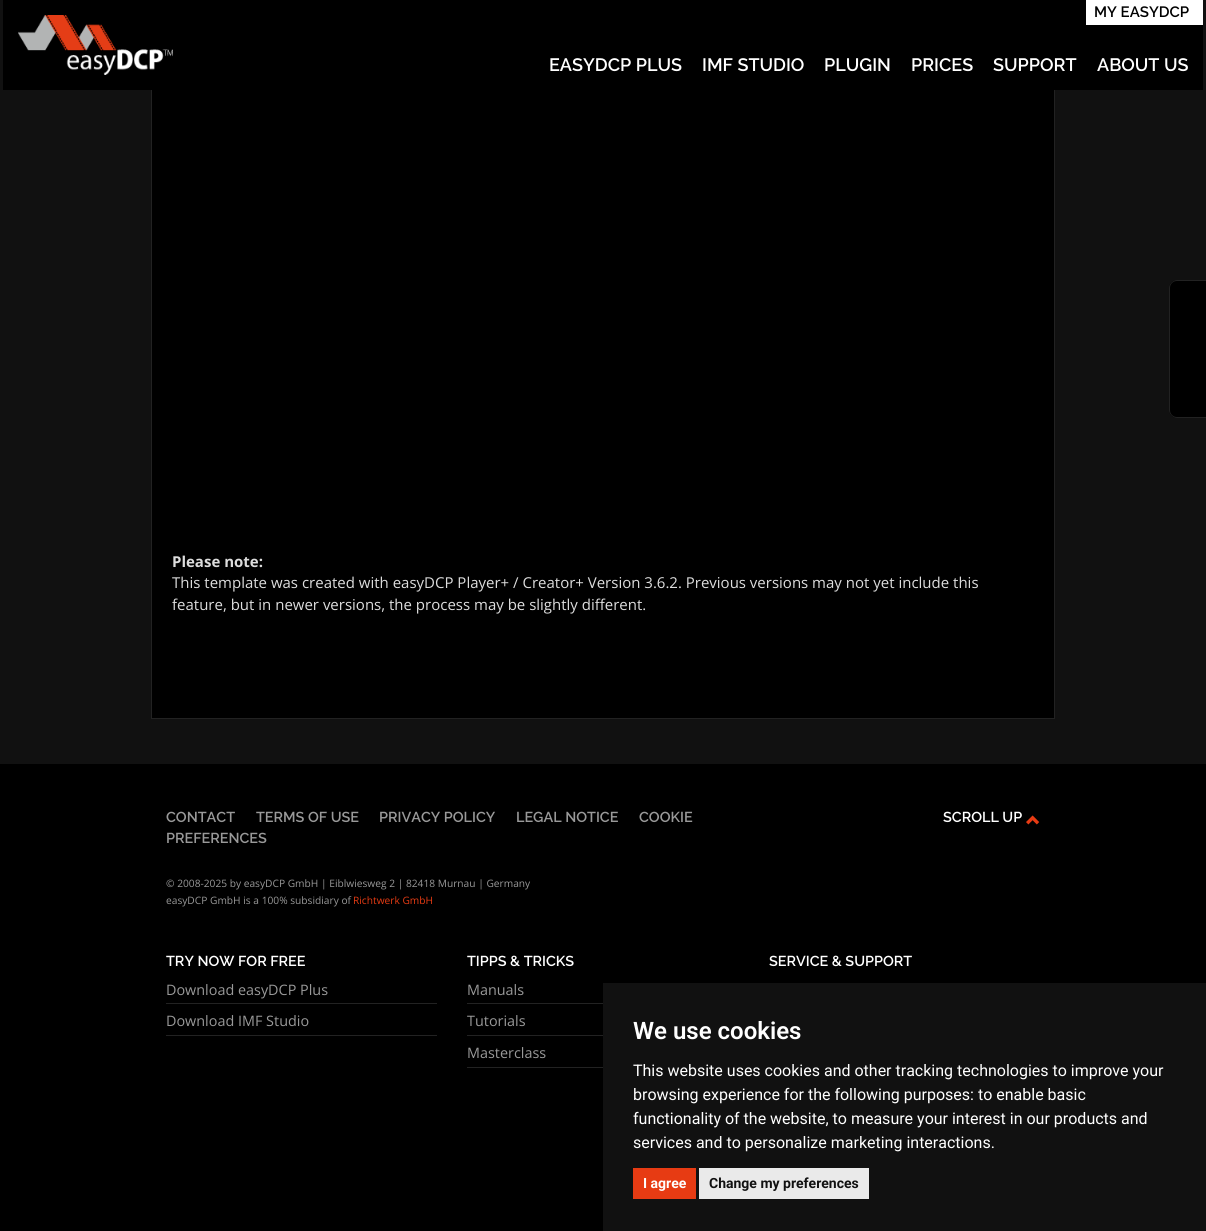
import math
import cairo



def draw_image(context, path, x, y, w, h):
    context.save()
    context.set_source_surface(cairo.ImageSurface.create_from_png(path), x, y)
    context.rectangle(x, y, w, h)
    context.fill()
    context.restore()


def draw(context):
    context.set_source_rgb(0, 0, 0)
    context.paint()
    context.set_source_rgb(17 / 255, 17 / 255, 17 / 255)
    context.rectangle(0, 0, 1206, 764)
    context.fill()
    context.set_source_rgb(0, 0, 0)
    context.rectangle(152, 90, 902, 628)
    context.fill()
    context.rectangle(151.5, -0.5, 903, 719)
    context.set_source_rgb(34 / 255, 34 / 255, 34 / 255)
    context.set_line_width(1)
    context.stroke()
    context.set_source_rgb(0, 0, 0)
    context.rectangle(3, 0, 1083, 25)
    context.fill()
    context.set_source_rgb(1, 1, 1)
    context.rectangle(1086, 0, 117, 25)
    context.fill()
    context.set_source_rgb(0, 0, 0)
    context.rectangle(3, 25, 1200, 65)
    context.fill()
    draw_image(context, "images/1.png", 18, 15, 155, 60)
    context.new_path()
    context.move_to(1177, 280)
    context.line_to(1206, 280)
    context.line_to(1206, 418)
    context.line_to(1177, 418)
    context.curve_to(1172.5, 418, 1169, 414.5, 1169, 410)
    context.line_to(1169, 288)
    context.curve_to(1169, 283.5, 1172.5, 280, 1177, 280)
    context.close_path()
    context.fill()
    context.set_source_rgb(34 / 255, 34 / 255, 34 / 255)
    context.set_fill_rule(cairo.FillRule.EVEN_ODD)
    context.new_path()
    context.move_to(1177, 280)
    context.line_to(1206, 280)
    context.line_to(1206, 418)
    context.line_to(1177, 418)
    context.curve_to(1173, 418, 1169, 414, 1169, 410)
    context.line_to(1169, 288)
    context.curve_to(1169, 284, 1173, 280, 1177, 280)
    context.close_path()
    context.move_to(1177, 281)
    context.line_to(1206, 281)
    context.line_to(1206, 417)
    context.line_to(1177, 417)
    context.curve_to(1173, 417, 1170, 414, 1170, 410)
    context.line_to(1170, 288)
    context.curve_to(1170, 284, 1173, 281, 1177, 281)
    context.close_path()
    context.fill()
    draw_image(context, "images/2.png", 1026, 815, 14, 10)
    context.rectangle(166, 1003, 271, 1)
    context.fill()
    context.rectangle(166, 1035, 271, 1)
    context.fill()
    context.rectangle(467, 1003, 136, 1)
    context.fill()
    context.rectangle(467, 1035, 136, 1)
    context.fill()
    context.rectangle(467, 1067, 136, 1)
    context.fill()
    context.set_source_rgb(17 / 255, 17 / 255, 17 / 255)
    context.rectangle(603, 983, 603, 248)
    context.fill()
    context.set_source_rgb(231 / 255, 59 / 255, 19 / 255)
    context.rectangle(633, 1168, 63, 31)
    context.fill()
    context.set_source_rgb(234 / 255, 234 / 255, 234 / 255)
    context.rectangle(699, 1168, 170, 31)
    context.fill()
    context.select_font_face("Raleway Thin")
    context.set_font_size(15)
    context.set_source_rgb(0, 0, 0)
    context.move_to(1094, 17)
    context.show_text("MY EASYDCP")
    context.set_font_size(18)
    context.set_source_rgb(1, 1, 1)
    context.move_to(549, 71)
    context.show_text("EASYDCP PLUS")
    context.move_to(702, 71)
    context.show_text("IMF STUDIO")
    context.move_to(824, 71)
    context.show_text("PLUGIN")
    context.move_to(911, 71)
    context.show_text("PRICES")
    context.move_to(993, 71)
    context.show_text("SUPPORT")
    context.move_to(1097, 71)
    context.show_text("ABOUT US")
    context.select_font_face("Open Sans", cairo.FontSlant.NORMAL, cairo.FontWeight.BOLD)
    context.set_font_size(15)
    context.set_source_rgb(221 / 255, 221 / 255, 221 / 255)
    context.move_to(172, 567)
    context.show_text("Please note:")
    context.select_font_face("Open Sans")
    context.move_to(172, 588)
    context.show_text("This template was created with easyDCP Player+ / Creator+ Version 3.6.2. Previous versions may not yet include this")
    context.move_to(172, 610)
    context.show_text("feature, but in newer versions, the process may be slightly different.")
    context.select_font_face("Raleway Thin")
    context.set_font_size(14.4)
    context.set_source_rgb(153 / 255, 153 / 255, 153 / 255)
    context.move_to(166, 822)
    context.show_text("CONTACT")
    context.move_to(256, 822)
    context.show_text("TERMS OF USE")
    context.move_to(379, 822)
    context.show_text("PRIVACY POLICY")
    context.move_to(516, 822)
    context.show_text("LEGAL NOTICE")
    context.move_to(639, 822)
    context.show_text("COOKIE")
    context.move_to(166, 843)
    context.show_text("PREFERENCES")
    context.select_font_face("Open Sans")
    context.set_font_size(10.2)
    context.move_to(166, 887)
    context.show_text("© 2008-2025 by easyDCP GmbH | Eiblwiesweg 2 | 82418 Murnau | Germany")
    context.move_to(166, 904)
    context.show_text("easyDCP GmbH is a 100% subsidiary of")
    context.set_source_rgb(231 / 255, 59 / 255, 19 / 255)
    context.move_to(353, 904)
    context.show_text("Richtwerk GmbH")
    context.select_font_face("Raleway Thin")
    context.set_font_size(14.4)
    context.set_source_rgb(1, 1, 1)
    context.move_to(943, 822)
    context.show_text("SCROLL UP")
    context.move_to(166, 966)
    context.show_text("TRY NOW FOR FREE")
    context.select_font_face("Open Sans")
    context.set_source_rgb(153 / 255, 153 / 255, 153 / 255)
    context.move_to(166, 995)
    context.show_text("Download easyDCP Plus")
    context.move_to(166, 1026)
    context.show_text("Download IMF Studio")
    context.select_font_face("Raleway Thin")
    context.set_source_rgb(1, 1, 1)
    context.move_to(467, 966)
    context.show_text("TIPPS & TRICKS")
    context.select_font_face("Open Sans")
    context.set_source_rgb(153 / 255, 153 / 255, 153 / 255)
    context.move_to(467, 995)
    context.show_text("Manuals")
    context.move_to(467, 1026)
    context.show_text("Tutorials")
    context.move_to(467, 1058)
    context.show_text("Masterclass")
    context.select_font_face("Raleway Thin")
    context.set_source_rgb(1, 1, 1)
    context.move_to(769, 966)
    context.show_text("SERVICE & SUPPORT")
    context.select_font_face("Roboto SemiBold")
    context.set_font_size(24)
    context.move_to(633, 1039)
    context.show_text("We use cookies")
    context.select_font_face("Roboto")
    context.set_font_size(16)
    context.move_to(633, 1076)
    context.show_text("This website uses cookies and other tracking technologies to improve your")
    context.move_to(633, 1100)
    context.show_text("browsing experience for the following purposes: to enable basic")
    context.move_to(633, 1124)
    context.show_text("functionality of the website, to measure your interest in our products and")
    context.move_to(633, 1148)
    context.show_text("services and to personalize marketing interactions.")
    context.select_font_face("Roboto", cairo.FontSlant.NORMAL, cairo.FontWeight.BOLD)
    context.set_font_size(14)
    context.move_to(643, 1188)
    context.show_text("I agree")
    context.set_source_rgb(17 / 255, 17 / 255, 17 / 255)
    context.move_to(709, 1188)
    context.show_text("Change my preferences")


surface = cairo.ImageSurface(cairo.Format.RGB24, 1206, 1231)
context = cairo.Context(surface)
options = cairo.FontOptions()
options.set_hint_metrics(cairo.HintMetrics.OFF)
options.set_hint_style(cairo.HintStyle.NONE)
context.set_font_options(options)
context.set_miter_limit(4)
draw(context)
surface.write_to_png("out.png")
